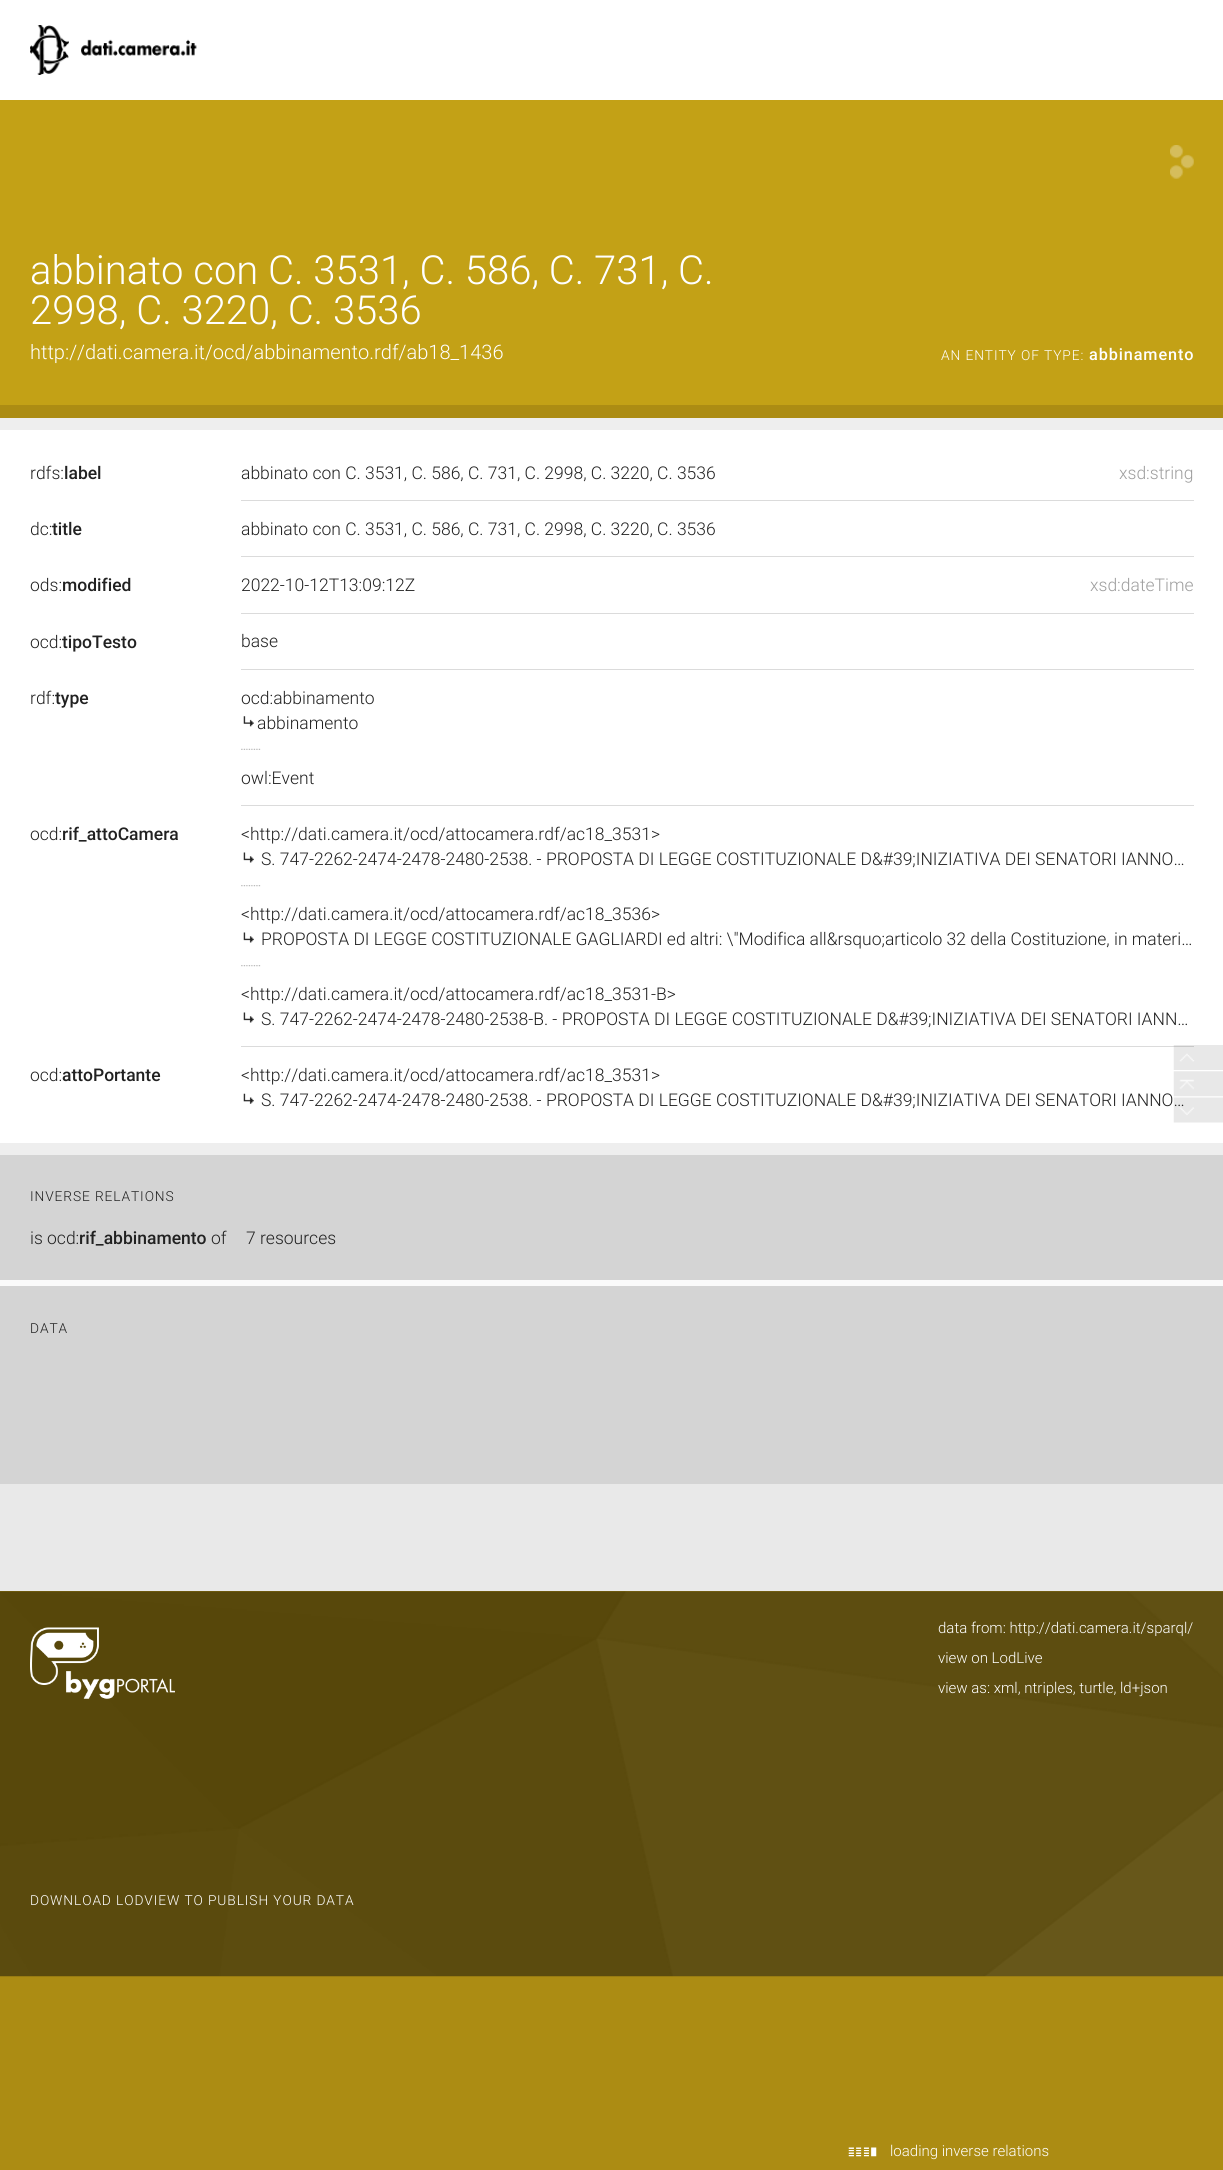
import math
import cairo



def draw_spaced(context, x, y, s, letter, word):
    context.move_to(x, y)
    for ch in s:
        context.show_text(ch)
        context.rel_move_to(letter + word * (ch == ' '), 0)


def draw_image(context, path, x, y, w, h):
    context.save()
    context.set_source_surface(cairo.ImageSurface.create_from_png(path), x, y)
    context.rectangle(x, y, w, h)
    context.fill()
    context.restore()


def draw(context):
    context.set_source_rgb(172 / 255, 140 / 255, 19 / 255)
    context.paint()
    context.set_source_rgb(1, 1, 1)
    context.rectangle(0, 0, 1223, 100)
    context.fill()
    draw_image(context, "images/1.png", 30, 25, 167, 50)
    context.set_source_rgb(195 / 255, 161 / 255, 22 / 255)
    context.rectangle(0, 100, 1223, 305)
    context.fill()
    draw_image(context, "images/2.png", 1170, 145, 24, 34)
    context.set_source_rgb(238 / 255, 238 / 255, 238 / 255)
    context.rectangle(0, 418, 1223, 12)
    context.fill()
    context.set_source_rgb(1, 1, 1)
    context.rectangle(0, 430, 1223, 713)
    context.fill()
    context.set_source_rgb(219 / 255, 219 / 255, 219 / 255)
    context.rectangle(241, 500, 953, 1)
    context.fill()
    context.rectangle(241, 556, 953, 1)
    context.fill()
    context.rectangle(241, 613, 953, 1)
    context.fill()
    context.rectangle(241, 669, 953, 1)
    context.fill()
    context.rectangle(241, 805, 953, 1)
    context.fill()
    draw_image(context, "images/3.png", 241, 748, 20, 2)
    draw_image(context, "images/4.png", 243, 716, 11, 11)
    context.rectangle(241, 1046, 953, 1)
    context.fill()
    draw_image(context, "images/5.png", 241, 885, 20, 2)
    draw_image(context, "images/6.png", 243, 852, 11, 11)
    draw_image(context, "images/5.png", 241, 965, 20, 2)
    draw_image(context, "images/6.png", 243, 932, 11, 11)
    draw_image(context, "images/6.png", 243, 1012, 11, 11)
    draw_image(context, "images/7.png", 243, 1093, 11, 11)
    context.set_source_rgb(238 / 255, 238 / 255, 238 / 255)
    context.rectangle(0, 1143, 1223, 12)
    context.fill()
    context.set_source_rgb(212 / 255, 212 / 255, 212 / 255)
    context.rectangle(0, 1155, 1223, 125)
    context.fill()
    context.set_source_rgb(250 / 255, 250 / 255, 250 / 255)
    context.rectangle(0, 1280, 1223, 6)
    context.fill()
    context.set_source_rgb(212 / 255, 212 / 255, 212 / 255)
    context.rectangle(0, 1286, 1223, 198)
    context.fill()
    context.set_source_rgb(233 / 255, 233 / 255, 233 / 255)
    context.rectangle(0, 1484, 1223, 107)
    context.fill()
    draw_image(context, "images/8.png", 1173, 1045, 50, 25)
    draw_image(context, "images/11.png", 0, 1591, 1223, 386)
    draw_image(context, "images/12.png", 30, 1627, 145, 72)
    draw_image(context, "images/13.png", 848, 2147, 29, 10)
    context.select_font_face("Roboto Light")
    context.set_font_size(40)
    context.set_source_rgb(1, 1, 1)
    context.move_to(30, 284)
    context.show_text("abbinato con C. 3531, C. 586, C. 731, C.")
    context.move_to(30, 324)
    context.show_text("2998, C. 3220, C. 3536")
    context.set_font_size(20)
    context.move_to(30, 359)
    context.show_text("http://dati.camera.it/ocd/abbinamento.rdf/ab18_1436")
    context.set_font_size(13.75)
    draw_spaced(context, 941, 360, "AN ENTITY OF TYPE:", 0.9, 0)
    context.select_font_face("Roboto Medium")
    context.set_font_size(16.25)
    draw_spaced(context, 1089, 360, "abbinamento", 0.9, 0)
    context.select_font_face("Roboto Light")
    context.set_font_size(17.5)
    context.set_source_rgb(33 / 255, 33 / 255, 33 / 255)
    context.move_to(30, 479)
    context.show_text("rdfs:")
    context.select_font_face("Roboto Medium")
    context.move_to(64, 479)
    context.show_text("label")
    context.select_font_face("Roboto Light")
    context.move_to(241, 479)
    context.show_text("abbinato con C. 3531, C. 586, C. 731, C. 2998, C. 3220, C. 3536")
    context.set_source_rgb(158 / 255, 158 / 255, 158 / 255)
    context.move_to(1119, 479)
    context.show_text("xsd:string")
    context.set_source_rgb(33 / 255, 33 / 255, 33 / 255)
    context.move_to(30, 535)
    context.show_text("dc:")
    context.select_font_face("Roboto Medium")
    context.move_to(52, 535)
    context.show_text("title")
    context.select_font_face("Roboto Light")
    context.move_to(241, 535)
    context.show_text("abbinato con C. 3531, C. 586, C. 731, C. 2998, C. 3220, C. 3536")
    context.move_to(30, 591)
    context.show_text("ods:")
    context.select_font_face("Roboto Medium")
    context.move_to(62, 591)
    context.show_text("modified")
    context.select_font_face("Roboto Light")
    context.move_to(241, 591)
    context.show_text("2022-10-12T13:09:12Z")
    context.set_source_rgb(158 / 255, 158 / 255, 158 / 255)
    context.move_to(1090, 591)
    context.show_text("xsd:dateTime")
    context.set_source_rgb(33 / 255, 33 / 255, 33 / 255)
    context.move_to(30, 648)
    context.show_text("ocd:")
    context.select_font_face("Roboto Medium")
    context.move_to(62, 648)
    context.show_text("tipoTesto")
    context.select_font_face("Roboto Light")
    context.move_to(241, 647)
    context.show_text("base")
    context.move_to(30, 704)
    context.show_text("rdf:")
    context.select_font_face("Roboto Medium")
    context.move_to(55, 704)
    context.show_text("type")
    context.select_font_face("Roboto Light")
    context.move_to(241, 704)
    context.show_text("ocd:abbinamento")
    context.move_to(257, 729)
    context.show_text("abbinamento")
    context.move_to(241, 784)
    context.show_text("owl:Event")
    context.move_to(30, 840)
    context.show_text("ocd:")
    context.select_font_face("Roboto Medium")
    context.move_to(62, 840)
    context.show_text("rif_attoCamera")
    context.select_font_face("Roboto Light")
    context.move_to(241, 840)
    context.show_text("<http://dati.camera.it/ocd/attocamera.rdf/ac18_3531>")
    context.move_to(261, 865)
    context.show_text("S. 747-2262-2474-2478-2480-2538. - PROPOSTA DI LEGGE COSTITUZIONALE D&#39;INIZIATIVA DEI SENATORI IANNO…")
    context.move_to(241, 920)
    context.show_text("<http://dati.camera.it/ocd/attocamera.rdf/ac18_3536>")
    context.move_to(261, 945)
    context.show_text("PROPOSTA DI LEGGE COSTITUZIONALE GAGLIARDI ed altri: \\\"Modifica all&rsquo;articolo 32 della Costituzione, in materi…")
    context.move_to(241, 1000)
    context.show_text("<http://dati.camera.it/ocd/attocamera.rdf/ac18_3531-B>")
    context.move_to(261, 1025)
    context.show_text("S. 747-2262-2474-2478-2480-2538-B. - PROPOSTA DI LEGGE COSTITUZIONALE D&#39;INIZIATIVA DEI SENATORI IANN…")
    context.move_to(30, 1081)
    context.show_text("ocd:")
    context.select_font_face("Roboto Medium")
    context.move_to(62, 1081)
    context.show_text("attoPortante")
    context.select_font_face("Roboto Light")
    context.move_to(241, 1081)
    context.show_text("<http://dati.camera.it/ocd/attocamera.rdf/ac18_3531>")
    context.move_to(261, 1106)
    context.show_text("S. 747-2262-2474-2478-2480-2538. - PROPOSTA DI LEGGE COSTITUZIONALE D&#39;INIZIATIVA DEI SENATORI IANNO…")
    context.set_font_size(13.75)
    draw_spaced(context, 30, 1201, "INVERSE RELATIONS", 0.9, 0)
    context.set_font_size(17.5)
    context.move_to(30, 1244)
    context.show_text("is ocd:")
    context.select_font_face("Roboto Medium")
    context.move_to(79, 1244)
    context.show_text("rif_abbinamento")
    context.select_font_face("Roboto Light")
    context.move_to(211, 1244)
    context.show_text("of")
    context.move_to(246, 1244)
    context.show_text("7 resources")
    context.set_font_size(13.75)
    draw_spaced(context, 30, 1333, "DATA", 0.9, 0)
    draw_image(context, "images/9.png", 1173, 1071, 50, 26)
    draw_image(context, "images/10.png", 1173, 1097, 50, 26)
    context.set_font_size(15)
    context.set_source_rgb(1, 1, 1)
    context.move_to(938, 1633)
    context.show_text("data from: http://dati.camera.it/sparql/")
    context.move_to(938, 1663)
    context.show_text("view on LodLive")
    context.move_to(938, 1693)
    context.show_text("view as: xml, ntriples, turtle, ld+json")
    context.set_font_size(13.75)
    draw_spaced(context, 30, 1905, "DOWNLOAD LODVIEW TO PUBLISH YOUR DATA", 0.9, 0)
    context.set_font_size(15)
    context.move_to(890, 2156)
    context.show_text("loading inverse relations")


surface = cairo.ImageSurface(cairo.Format.RGB24, 1223, 2170)
context = cairo.Context(surface)
options = cairo.FontOptions()
options.set_hint_metrics(cairo.HintMetrics.OFF)
options.set_hint_style(cairo.HintStyle.NONE)
context.set_font_options(options)
context.set_miter_limit(4)
draw(context)
surface.write_to_png("out.png")
